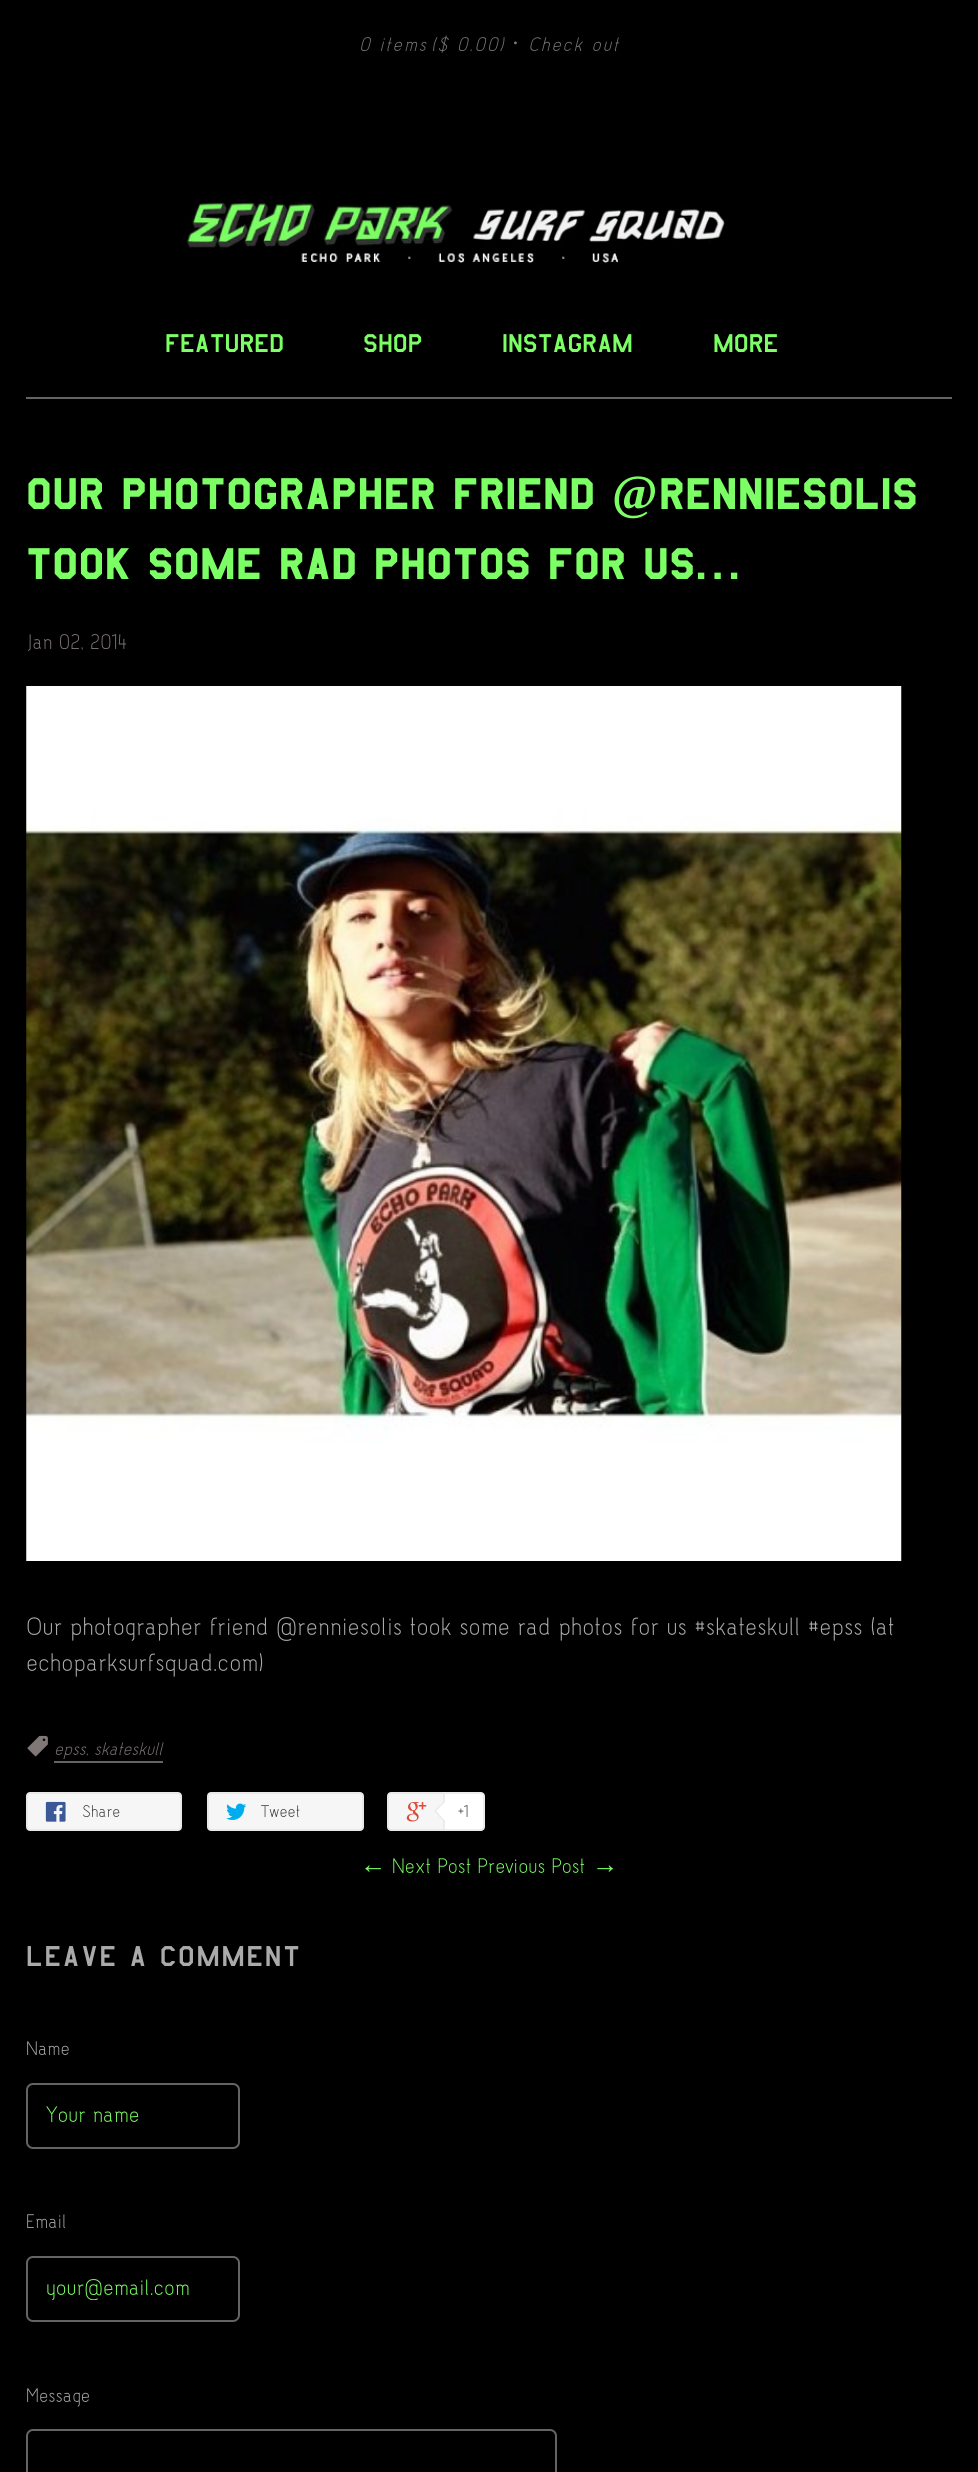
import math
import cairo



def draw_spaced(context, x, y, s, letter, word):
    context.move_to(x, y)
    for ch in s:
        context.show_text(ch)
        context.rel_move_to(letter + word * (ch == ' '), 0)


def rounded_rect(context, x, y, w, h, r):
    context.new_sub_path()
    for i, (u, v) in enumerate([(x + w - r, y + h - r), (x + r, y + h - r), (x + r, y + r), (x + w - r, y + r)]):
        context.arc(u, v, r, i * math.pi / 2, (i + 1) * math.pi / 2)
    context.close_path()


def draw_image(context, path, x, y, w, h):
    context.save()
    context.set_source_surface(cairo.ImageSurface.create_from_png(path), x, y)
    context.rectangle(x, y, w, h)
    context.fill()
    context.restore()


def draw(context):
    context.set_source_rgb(0, 0, 0)
    context.paint()
    context.set_source_rgb(100 / 255, 100 / 255, 100 / 255)
    context.rectangle(26, 397, 926, 2)
    context.fill()
    draw_image(context, "images/1.png", 186, 196, 539, 67)
    draw_image(context, "images/2.png", 26, 686, 876, 875)
    draw_image(context, "images/3.png", 27, 1735, 21, 22)
    context.rectangle(54, 1761, 109, 2)
    context.fill()
    context.set_source_rgb(246 / 255, 246 / 255, 246 / 255)
    rounded_rect(context, 27, 1793, 154, 37, 3)
    context.fill_preserve()
    context.set_source_rgb(233 / 255, 233 / 255, 233 / 255)
    context.stroke()
    draw_image(context, "images/4.png", 45, 1801, 21, 21)
    context.set_source_rgb(246 / 255, 246 / 255, 246 / 255)
    rounded_rect(context, 208, 1793, 155, 37, 3)
    context.fill_preserve()
    context.set_source_rgb(233 / 255, 233 / 255, 233 / 255)
    context.stroke()
    draw_image(context, "images/5.png", 226, 1803, 21, 17)
    context.set_source_rgb(246 / 255, 246 / 255, 246 / 255)
    rounded_rect(context, 388, 1793, 94, 37, 3)
    context.fill_preserve()
    context.set_source_rgb(233 / 255, 233 / 255, 233 / 255)
    context.stroke()
    draw_image(context, "images/6.png", 406, 1802, 21, 20)
    context.set_source_rgb(1, 1, 1)
    context.new_path()
    context.move_to(444, 1793)
    context.line_to(481, 1793)
    context.curve_to(482.5, 1793, 484, 1794.5, 484, 1796)
    context.line_to(484, 1827)
    context.curve_to(484, 1828.5, 482.5, 1830, 481, 1830)
    context.line_to(444, 1830)
    context.close_path()
    context.fill_preserve()
    context.set_source_rgb(236 / 255, 236 / 255, 236 / 255)
    context.stroke()
    context.set_source_rgb(233 / 255, 233 / 255, 233 / 255)
    context.new_path()
    context.move_to(444.5, 1801)
    context.line_to(444.5, 1822)
    context.line_to(434, 1811)
    context.close_path()
    context.fill()
    context.set_source_rgb(1, 1, 1)
    context.new_path()
    context.move_to(446, 1801)
    context.line_to(446, 1822)
    context.line_to(436, 1811)
    context.close_path()
    context.fill()
    rounded_rect(context, 27, 2084, 212, 64, 6)
    context.set_source_rgb(100 / 255, 100 / 255, 100 / 255)
    context.stroke()
    rounded_rect(context, 27, 2257, 212, 64, 6)
    context.stroke()
    rounded_rect(context, 27, 2430, 529, 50, 6)
    context.stroke()
    context.select_font_face("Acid", cairo.FontSlant.ITALIC)
    context.set_font_size(24.5)
    context.set_source_rgb(119 / 255, 119 / 255, 119 / 255)
    draw_spaced(context, 359, 51, "0 items", 1.75, 0)
    draw_spaced(context, 431, 51, "($ 0.00)", 1.75, 0)
    context.select_font_face("Liberation Serif", cairo.FontSlant.ITALIC)
    draw_spaced(context, 512, 51, "·", 1.75, 0)
    context.select_font_face("Acid", cairo.FontSlant.ITALIC)
    draw_spaced(context, 528, 51, "Check out", 1.75, 0)
    context.select_font_face("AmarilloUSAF")
    context.set_font_size(29.75)
    context.set_source_rgb(124 / 255, 1, 101 / 255)
    context.move_to(165, 352)
    context.show_text("FEATURED")
    context.move_to(363, 352)
    context.show_text("SHOP")
    context.move_to(502, 352)
    context.show_text("INSTAGRAM")
    context.move_to(713, 352)
    context.show_text("More")
    context.select_font_face("AmarilloUSAF", cairo.FontSlant.NORMAL, cairo.FontWeight.BOLD)
    context.set_font_size(49)
    draw_spaced(context, 26, 509, "Our photographer friend", 1.75, 0)
    context.select_font_face("Liberation Serif", cairo.FontSlant.NORMAL, cairo.FontWeight.BOLD)
    draw_spaced(context, 612, 509, "@", 1.75, 0)
    context.select_font_face("AmarilloUSAF", cairo.FontSlant.NORMAL, cairo.FontWeight.BOLD)
    draw_spaced(context, 659, 509, "renniesolis", 1.75, 0)
    draw_spaced(context, 26, 579, "took some rad photos for us...", 1.75, 0)
    context.select_font_face("Acid")
    context.set_font_size(26.25)
    context.set_source_rgb(128 / 255, 119 / 255, 119 / 255)
    context.move_to(26, 649)
    context.show_text("Jan 02, 2014")
    context.set_font_size(31.5)
    context.set_source_rgb(170 / 255, 170 / 255, 170 / 255)
    context.move_to(26, 1635)
    context.show_text("Our photographer friend @renniesolis took some rad photos for us #skateskull #epss (at")
    context.move_to(26, 1671)
    context.show_text("echoparksurfsquad.com)")
    context.select_font_face("Acid", cairo.FontSlant.ITALIC)
    context.set_font_size(22.75)
    context.set_source_rgb(128 / 255, 119 / 255, 119 / 255)
    context.move_to(54, 1755)
    context.show_text("epss, skateskull")
    context.select_font_face("Acid")
    context.set_font_size(21)
    context.set_source_rgb(51 / 255, 51 / 255, 51 / 255)
    context.move_to(82, 1817)
    context.show_text("Share")
    context.move_to(261, 1817)
    context.show_text("Tweet")
    context.move_to(458, 1817)
    context.show_text("+1")
    context.select_font_face("Liberation Serif")
    context.set_font_size(26.25)
    context.set_source_rgb(124 / 255, 1, 101 / 255)
    context.move_to(360, 1873)
    context.show_text("←")
    context.select_font_face("Acid")
    context.move_to(392, 1873)
    context.show_text("Next Post Previous Post")
    context.select_font_face("Liberation Serif")
    context.move_to(592, 1873)
    context.show_text("→")
    context.select_font_face("AmarilloUSAF")
    context.set_font_size(33.25)
    context.set_source_rgb(170 / 255, 170 / 255, 170 / 255)
    draw_spaced(context, 26, 1966, "Leave a comment", 1.75, 0)
    context.select_font_face("Acid")
    context.set_font_size(24.5)
    context.move_to(26, 2055)
    context.show_text("Name")
    context.set_font_size(28)
    context.set_source_rgb(124 / 255, 1, 101 / 255)
    context.move_to(46, 2122)
    context.show_text("Your name")
    context.set_font_size(24.5)
    context.set_source_rgb(170 / 255, 170 / 255, 170 / 255)
    context.move_to(26, 2228)
    context.show_text("Email")
    context.save()
    context.rectangle(46, 2275, 175, 25)
    context.clip()
    context.set_font_size(28)
    context.set_source_rgb(124 / 255, 1, 101 / 255)
    context.move_to(46, 2295)
    context.show_text("your@email.com")
    context.restore()
    context.move_to(26, 2402)
    context.show_text("Message")


surface = cairo.ImageSurface(cairo.Format.RGB24, 978, 2472)
context = cairo.Context(surface)
options = cairo.FontOptions()
options.set_hint_metrics(cairo.HintMetrics.OFF)
options.set_hint_style(cairo.HintStyle.NONE)
context.set_font_options(options)
context.set_miter_limit(4)
draw(context)
surface.write_to_png("out.png")
